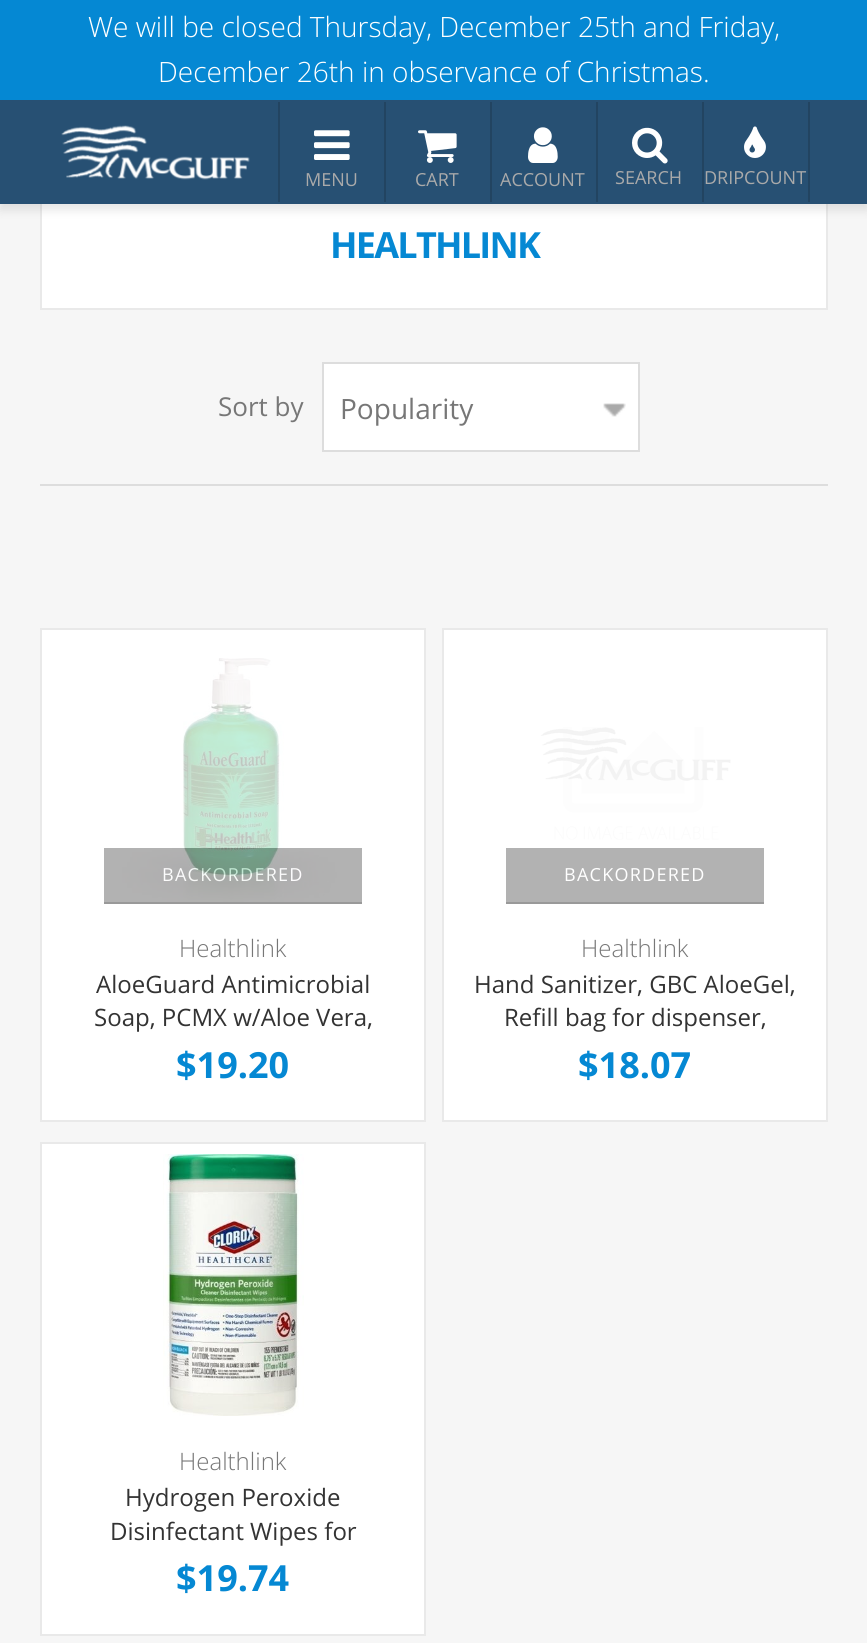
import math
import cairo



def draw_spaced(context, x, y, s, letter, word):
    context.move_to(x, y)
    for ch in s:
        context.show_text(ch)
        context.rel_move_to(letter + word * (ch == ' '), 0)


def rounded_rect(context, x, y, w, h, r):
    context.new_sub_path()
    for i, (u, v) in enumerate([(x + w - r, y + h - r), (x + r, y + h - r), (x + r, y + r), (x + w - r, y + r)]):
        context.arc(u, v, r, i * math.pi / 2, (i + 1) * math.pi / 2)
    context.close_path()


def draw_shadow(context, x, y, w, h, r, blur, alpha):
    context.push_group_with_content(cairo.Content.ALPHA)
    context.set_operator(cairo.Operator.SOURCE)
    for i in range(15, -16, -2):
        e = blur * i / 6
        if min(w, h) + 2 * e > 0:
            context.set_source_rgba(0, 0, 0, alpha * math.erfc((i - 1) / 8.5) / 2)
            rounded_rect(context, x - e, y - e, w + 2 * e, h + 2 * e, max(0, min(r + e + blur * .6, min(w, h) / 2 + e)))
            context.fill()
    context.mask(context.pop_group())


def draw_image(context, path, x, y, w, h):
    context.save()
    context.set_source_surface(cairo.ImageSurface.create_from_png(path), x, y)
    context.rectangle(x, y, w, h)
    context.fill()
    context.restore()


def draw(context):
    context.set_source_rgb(246 / 255, 246 / 255, 246 / 255)
    context.paint()
    context.set_source_rgb(1, 1, 1)
    context.rectangle(42, 204, 784, 104)
    context.fill()
    context.rectangle(41, 181, 786, 128)
    context.set_source_rgb(233 / 255, 233 / 255, 233 / 255)
    context.stroke()
    context.set_source_rgb(0, 0, 0)
    draw_shadow(context, 0, 102, 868, 108, 0, 5, 0.1)
    context.set_source_rgb(5 / 255, 136 / 255, 211 / 255)
    context.rectangle(0, 0, 867, 100)
    context.fill()
    context.set_source_rgb(39 / 255, 80 / 255, 115 / 255)
    context.rectangle(0, 100, 867, 104)
    context.fill()
    draw_image(context, "images/1.png", 61, 125, 189, 55)
    context.set_source_rgb(34 / 255, 68 / 255, 97 / 255)
    context.rectangle(278, 102, 2, 100)
    context.fill()
    context.rectangle(384, 102, 2, 100)
    context.fill()
    draw_image(context, "images/2.png", 314, 130, 36, 30)
    context.rectangle(490, 102, 2, 100)
    context.fill()
    draw_image(context, "images/3.png", 418, 130, 39, 33)
    context.rectangle(596, 102, 2, 100)
    context.fill()
    draw_image(context, "images/4.png", 528, 127, 30, 36)
    context.rectangle(702, 102, 2, 100)
    context.fill()
    draw_image(context, "images/5.png", 632, 127, 36, 37)
    context.rectangle(808, 102, 2, 100)
    context.fill()
    draw_image(context, "images/6.png", 744, 126, 22, 32)
    context.set_source_rgb(221 / 255, 221 / 255, 221 / 255)
    context.rectangle(40, 484, 788, 2)
    context.fill()
    context.set_source_rgb(1, 1, 1)
    context.rectangle(324, 364, 314, 86)
    context.fill()
    draw_image(context, "images/7.png", 603, 403, 23, 14)
    context.rectangle(323, 363, 316, 88)
    context.set_source_rgb(221 / 255, 221 / 255, 221 / 255)
    context.stroke()
    context.set_source_rgb(1, 1, 1)
    context.rectangle(41, 629, 384, 492)
    context.fill_preserve()
    context.set_source_rgb(233 / 255, 233 / 255, 233 / 255)
    context.stroke()
    context.set_source_rgb(153 / 255, 153 / 255, 153 / 255)
    context.rectangle(104, 848, 258, 56)
    context.fill()
    context.set_source_rgb(1, 1, 1)
    context.rectangle(443, 629, 384, 492)
    context.fill_preserve()
    context.set_source_rgb(233 / 255, 233 / 255, 233 / 255)
    context.stroke()
    context.set_source_rgb(153 / 255, 153 / 255, 153 / 255)
    context.rectangle(506, 848, 258, 56)
    context.fill()
    context.set_source_rgb(1, 1, 1)
    context.rectangle(41, 1143, 384, 492)
    context.fill_preserve()
    context.set_source_rgb(233 / 255, 233 / 255, 233 / 255)
    context.stroke()
    draw_image(context, "images/10.png", 163, 1154, 141, 262)
    context.select_font_face("Open Sans Light")
    context.set_font_size(28)
    context.set_source_rgb(1, 1, 1)
    context.move_to(88, 37)
    context.show_text("We will be closed Thursday, December 25th and Friday,")
    context.move_to(158, 82)
    context.show_text("December 26th in observance of Christmas.")
    context.select_font_face("Open Sans")
    context.set_font_size(18)
    context.set_source_rgb(170 / 255, 170 / 255, 170 / 255)
    context.move_to(305, 186)
    context.show_text("MENU")
    context.move_to(415, 186)
    context.show_text("CART")
    context.move_to(500, 186)
    context.show_text("ACCOUNT")
    context.move_to(615, 184)
    context.show_text("SEARCH")
    context.move_to(704, 184)
    context.show_text("DRIPCOUNT")
    context.select_font_face("Open Sans", cairo.FontSlant.NORMAL, cairo.FontWeight.BOLD)
    context.set_font_size(36)
    context.set_source_rgb(5 / 255, 136 / 255, 211 / 255)
    draw_spaced(context, 330, 258, "HEALTHLINK", -1.75, 0)
    context.select_font_face("Open Sans")
    context.set_font_size(26)
    context.set_source_rgb(119 / 255, 119 / 255, 119 / 255)
    context.move_to(218, 416)
    context.show_text("Sort by")
    context.set_font_size(28)
    context.move_to(340, 419)
    context.show_text("Popularity")
    context.set_font_size(18)
    context.set_source_rgb(1, 1, 1)
    draw_spaced(context, 162, 881, "BACKORDERED", 1.25, 0)
    draw_image(context, "images/8.png", 104, 658, 258, 244)
    context.select_font_face("Open Sans Light")
    context.set_font_size(24)
    context.set_source_rgb(119 / 255, 119 / 255, 119 / 255)
    context.move_to(179, 957)
    context.show_text("Healthlink")
    context.select_font_face("Open Sans")
    context.set_source_rgb(51 / 255, 51 / 255, 51 / 255)
    context.move_to(96, 993)
    context.show_text("AloeGuard Antimicrobial")
    context.move_to(94, 1026)
    context.show_text("Soap, PCMX w/Aloe Vera,")
    context.select_font_face("Open Sans", cairo.FontSlant.NORMAL, cairo.FontWeight.BOLD)
    context.set_font_size(36)
    context.set_source_rgb(5 / 255, 136 / 255, 211 / 255)
    context.move_to(176, 1078)
    context.show_text("$19.20")
    context.select_font_face("Open Sans")
    context.set_font_size(18)
    context.set_source_rgb(1, 1, 1)
    draw_spaced(context, 564, 881, "BACKORDERED", 1.25, 0)
    draw_image(context, "images/9.png", 506, 727, 258, 175)
    context.select_font_face("Open Sans Light")
    context.set_font_size(24)
    context.set_source_rgb(119 / 255, 119 / 255, 119 / 255)
    context.move_to(581, 957)
    context.show_text("Healthlink")
    context.select_font_face("Open Sans")
    context.set_source_rgb(51 / 255, 51 / 255, 51 / 255)
    context.move_to(474, 993)
    context.show_text("Hand Sanitizer, GBC AloeGel,")
    context.move_to(504, 1026)
    context.show_text("Refill bag for dispenser,")
    context.select_font_face("Open Sans", cairo.FontSlant.NORMAL, cairo.FontWeight.BOLD)
    context.set_font_size(36)
    context.set_source_rgb(5 / 255, 136 / 255, 211 / 255)
    context.move_to(578, 1078)
    context.show_text("$18.07")
    context.select_font_face("Open Sans Light")
    context.set_font_size(24)
    context.set_source_rgb(119 / 255, 119 / 255, 119 / 255)
    context.move_to(179, 1470)
    context.show_text("Healthlink")
    context.select_font_face("Open Sans")
    context.set_source_rgb(51 / 255, 51 / 255, 51 / 255)
    context.move_to(125, 1506)
    context.show_text("Hydrogen Peroxide")
    context.move_to(110, 1540)
    context.show_text("Disinfectant Wipes for")
    context.select_font_face("Open Sans", cairo.FontSlant.NORMAL, cairo.FontWeight.BOLD)
    context.set_font_size(36)
    context.set_source_rgb(5 / 255, 136 / 255, 211 / 255)
    context.move_to(176, 1591)
    context.show_text("$19.74")


surface = cairo.ImageSurface(cairo.Format.RGB24, 867, 1643)
context = cairo.Context(surface)
options = cairo.FontOptions()
options.set_hint_metrics(cairo.HintMetrics.OFF)
options.set_hint_style(cairo.HintStyle.NONE)
context.set_font_options(options)
context.set_miter_limit(4)
draw(context)
surface.write_to_png("out.png")
